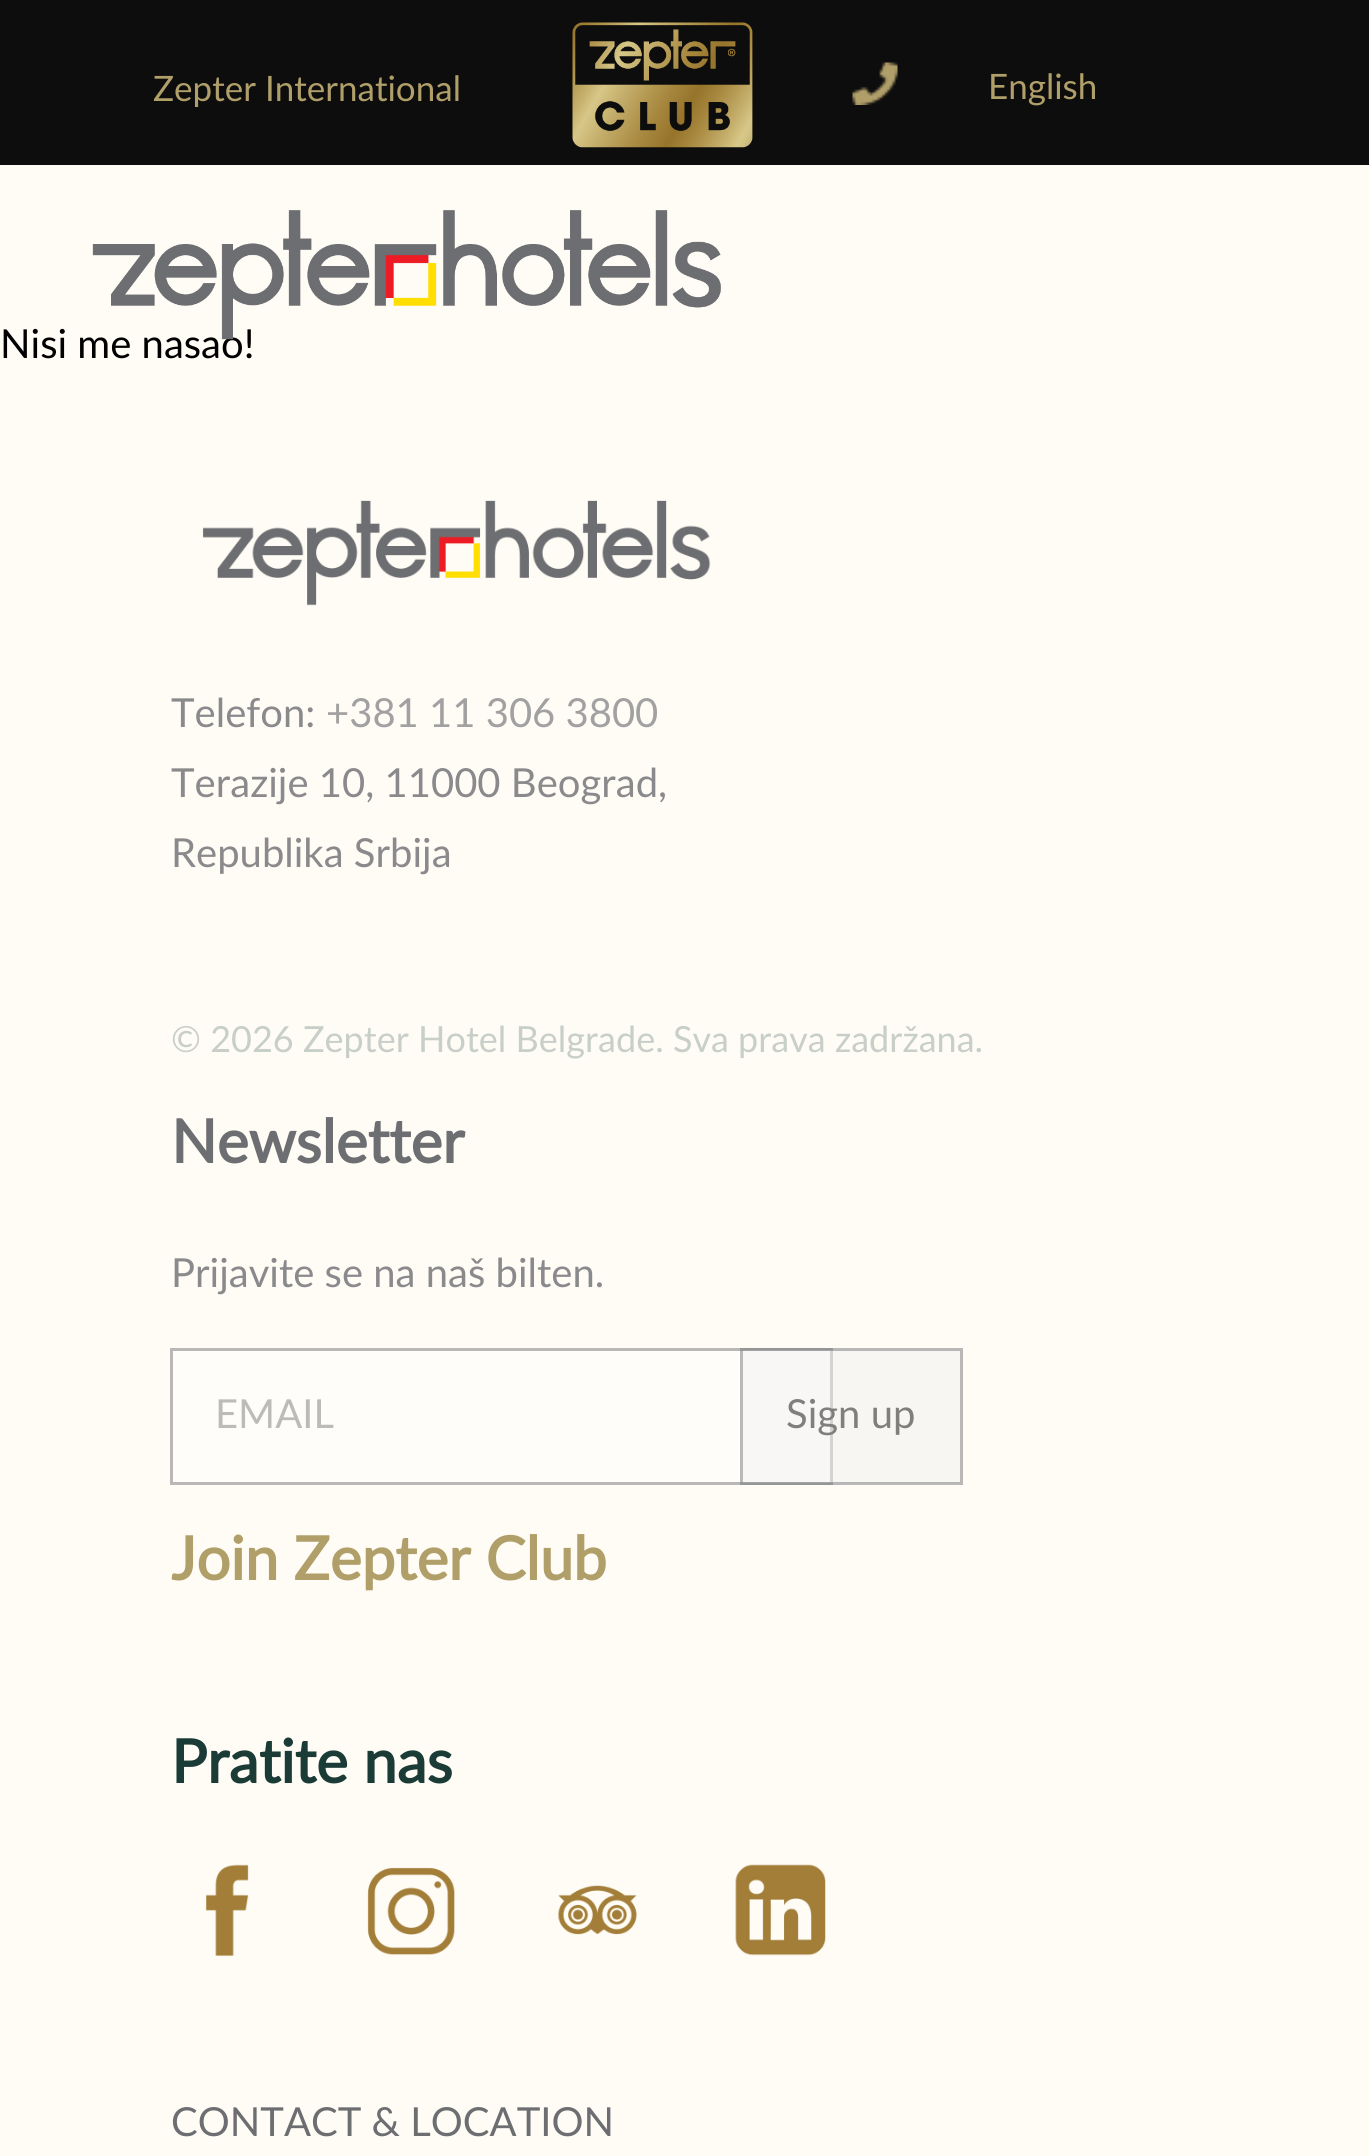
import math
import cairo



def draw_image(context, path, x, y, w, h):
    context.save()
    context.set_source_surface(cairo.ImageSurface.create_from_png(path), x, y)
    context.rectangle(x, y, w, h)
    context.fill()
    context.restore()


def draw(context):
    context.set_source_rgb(1, 252 / 255, 246 / 255)
    context.paint()
    context.set_source_rgb(13 / 255, 13 / 255, 13 / 255)
    context.rectangle(0, 0, 1369, 165)
    context.fill()
    draw_image(context, "images/1.png", 572, 22, 181, 126)
    draw_image(context, "images/2.png", 852, 62, 46, 43)
    draw_image(context, "images/4.png", 202, 500, 509, 106)
    context.set_source_rgb(1, 253 / 255, 250 / 255)
    context.rectangle(173, 1351, 657, 131)
    context.fill()
    context.rectangle(171.5, 1349.5, 660, 134)
    context.set_source_rgb(185 / 255, 184 / 255, 182 / 255)
    context.set_line_width(3)
    context.stroke()
    context.set_source_rgba(239 / 255, 239 / 255, 239 / 255, 0.48)
    context.rectangle(743, 1350, 217, 133)
    context.fill()
    context.rectangle(741.5, 1349.5, 220, 134)
    context.set_source_rgba(109 / 255, 110 / 255, 113 / 255, 0.48)
    context.stroke()
    draw_image(context, "images/5.png", 206, 1864, 43, 93)
    draw_image(context, "images/6.png", 367, 1867, 88, 88)
    draw_image(context, "images/7.png", 558, 1885, 79, 50)
    draw_image(context, "images/8.png", 735, 1864, 91, 92)
    context.select_font_face("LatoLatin")
    context.set_font_size(35)
    context.set_source_rgb(176 / 255, 159 / 255, 105 / 255)
    context.move_to(153, 101)
    context.show_text("Zepter International")
    context.move_to(988, 99)
    context.show_text("English")
    context.set_font_size(40)
    context.set_source_rgb(0, 0, 0)
    context.move_to(0, 358)
    context.show_text("Nisi me nasao!")
    draw_image(context, "images/3.png", 92, 210, 629, 130)
    context.set_source_rgb(138 / 255, 138 / 255, 140 / 255)
    context.move_to(171, 727)
    context.show_text("Telefon:")
    context.set_source_rgb(162 / 255, 161 / 255, 161 / 255)
    context.move_to(326, 727)
    context.show_text("+381 11 306 3800")
    context.set_source_rgb(138 / 255, 138 / 255, 140 / 255)
    context.move_to(171, 797)
    context.show_text("Terazije 10, 11000 Beograd,")
    context.move_to(171, 867)
    context.show_text("Republika Srbija")
    context.set_font_size(36)
    context.set_source_rgb(200 / 255, 206 / 255, 200 / 255)
    context.move_to(171, 1052)
    context.show_text("© 2026 Zepter Hotel Belgrade. Sva prava zadržana.")
    context.select_font_face("LatoLatin", cairo.FontSlant.NORMAL, cairo.FontWeight.BOLD)
    context.set_font_size(60)
    context.set_source_rgb(109 / 255, 110 / 255, 113 / 255)
    context.move_to(171, 1163)
    context.show_text("Newsletter")
    context.select_font_face("LatoLatin")
    context.set_font_size(40)
    context.set_source_rgb(138 / 255, 138 / 255, 140 / 255)
    context.move_to(171, 1287)
    context.show_text("Prijavite se na naš bilten.")
    context.set_source_rgb(189 / 255, 187 / 255, 184 / 255)
    context.move_to(215, 1428)
    context.show_text("EMAIL")
    context.set_source_rgb(128 / 255, 127 / 255, 126 / 255)
    context.move_to(786, 1428)
    context.show_text("Sign up")
    context.select_font_face("LatoLatin", cairo.FontSlant.NORMAL, cairo.FontWeight.BOLD)
    context.set_font_size(60)
    context.set_source_rgb(176 / 255, 159 / 255, 105 / 255)
    context.move_to(171, 1580)
    context.show_text("Join Zepter Club")
    context.set_source_rgb(27 / 255, 59 / 255, 54 / 255)
    context.move_to(171, 1783)
    context.show_text("Pratite nas")
    context.select_font_face("LatoLatin")
    context.set_font_size(40)
    context.set_source_rgb(109 / 255, 110 / 255, 113 / 255)
    context.move_to(171, 2136)
    context.show_text("CONTACT & LOCATION")


surface = cairo.ImageSurface(cairo.Format.RGB24, 1369, 2156)
context = cairo.Context(surface)
options = cairo.FontOptions()
options.set_hint_metrics(cairo.HintMetrics.OFF)
options.set_hint_style(cairo.HintStyle.NONE)
context.set_font_options(options)
context.set_miter_limit(4)
draw(context)
surface.write_to_png("out.png")
